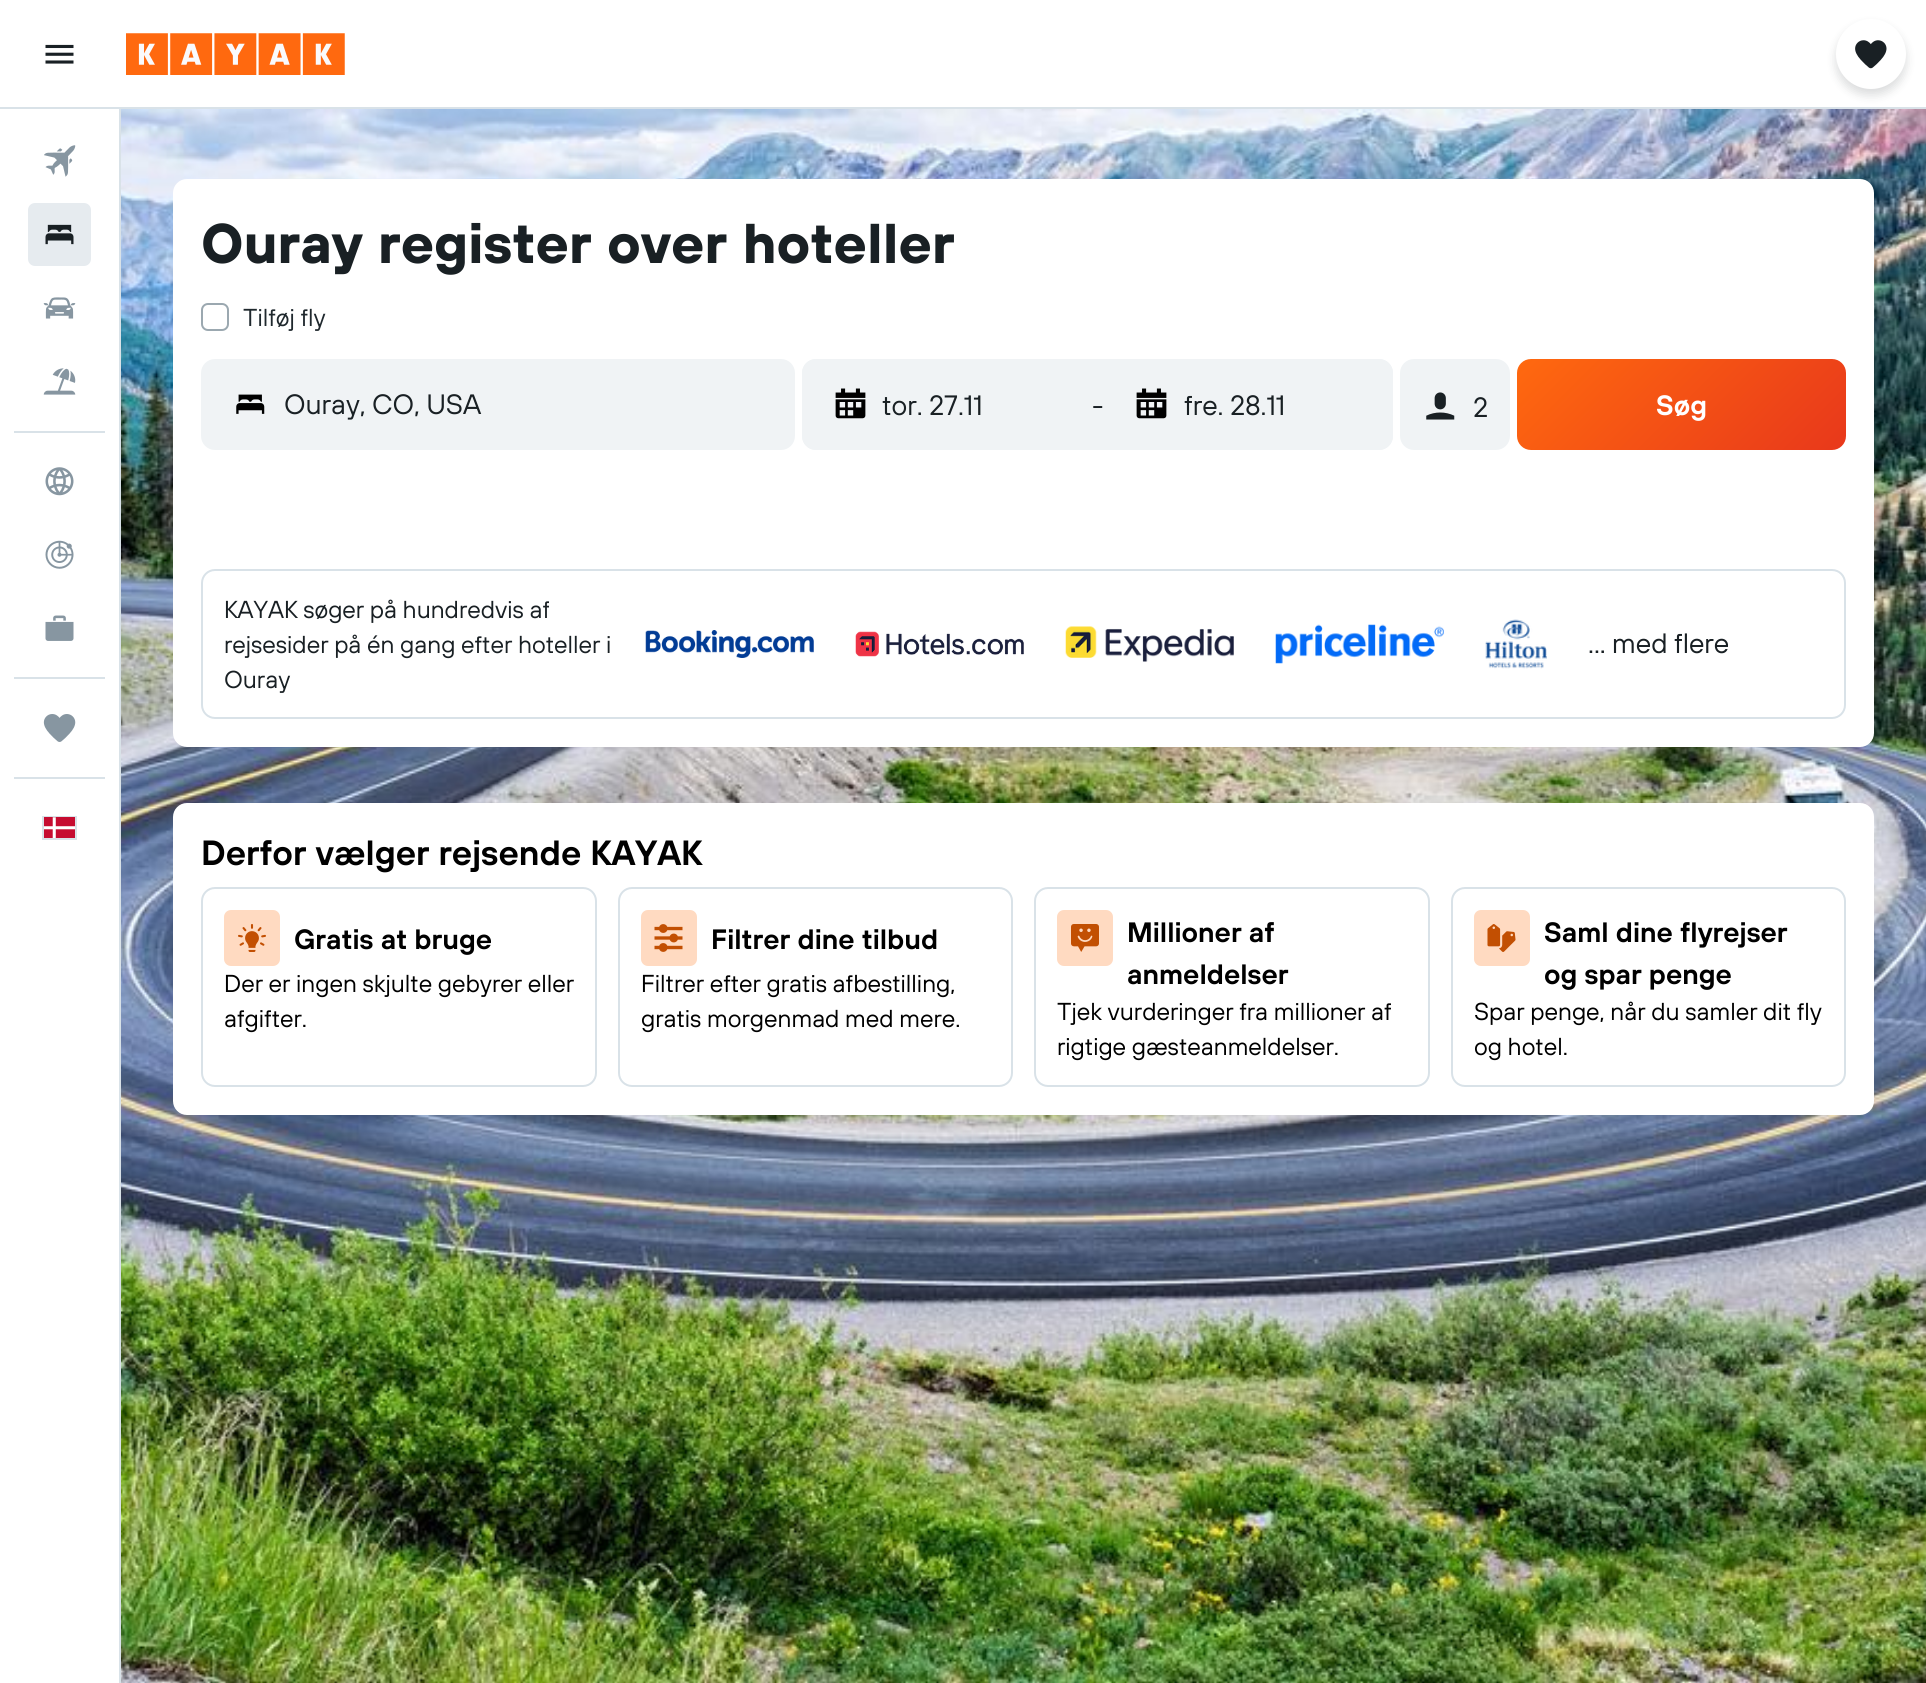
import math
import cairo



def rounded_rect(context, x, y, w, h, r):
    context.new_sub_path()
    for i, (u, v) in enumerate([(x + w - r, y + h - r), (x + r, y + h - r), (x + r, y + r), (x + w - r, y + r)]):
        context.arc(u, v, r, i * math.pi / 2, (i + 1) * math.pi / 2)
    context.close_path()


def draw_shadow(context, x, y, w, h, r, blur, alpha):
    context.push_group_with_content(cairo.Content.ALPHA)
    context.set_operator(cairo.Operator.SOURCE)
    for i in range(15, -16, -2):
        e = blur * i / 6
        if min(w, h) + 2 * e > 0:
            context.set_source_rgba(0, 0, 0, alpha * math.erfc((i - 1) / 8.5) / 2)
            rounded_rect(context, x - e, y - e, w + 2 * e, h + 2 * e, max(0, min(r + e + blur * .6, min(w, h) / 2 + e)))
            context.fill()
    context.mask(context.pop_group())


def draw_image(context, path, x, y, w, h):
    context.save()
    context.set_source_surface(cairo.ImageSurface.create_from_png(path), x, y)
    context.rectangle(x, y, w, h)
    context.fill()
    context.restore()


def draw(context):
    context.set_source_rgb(1, 1, 1)
    context.paint()
    context.set_source_rgb(217 / 255, 226 / 255, 232 / 255)
    context.rectangle(0, 107, 1926, 2)
    context.fill()
    draw_image(context, "images/1.png", 45, 44, 29, 20)
    draw_image(context, "images/2.png", 126, 33, 219, 42)
    draw_image(context, "images/13.png", 121, 109, 1805, 1574)
    context.set_source_rgb(25 / 255, 32 / 255, 36 / 255)
    draw_shadow(context, 1836, 25, 70, 70, 35, 5, 0.16)
    context.set_source_rgb(1, 1, 1)
    context.arc(1871, 54, 35, 0, 2 * math.pi)
    context.fill()
    draw_image(context, "images/3.png", 1855, 40, 32, 29)
    context.set_source_rgb(217 / 255, 226 / 255, 232 / 255)
    context.rectangle(119, 109, 2, 1574)
    context.fill()
    draw_image(context, "images/4.png", 44, 145, 32, 32)
    context.set_source_rgb(230 / 255, 235 / 255, 239 / 255)
    rounded_rect(context, 28, 203, 63, 63, 7)
    context.fill()
    draw_image(context, "images/5.png", 45, 224, 29, 21)
    draw_image(context, "images/6.png", 43, 297, 33, 22)
    draw_image(context, "images/7.png", 43, 368, 33, 27)
    context.set_source_rgb(217 / 255, 226 / 255, 232 / 255)
    context.rectangle(14, 431, 91, 2)
    context.fill()
    draw_image(context, "images/8.png", 45, 467, 29, 29)
    draw_image(context, "images/9.png", 45, 540, 29, 29)
    draw_image(context, "images/10.png", 45, 615, 29, 26)
    context.rectangle(14, 677, 91, 2)
    context.fill()
    draw_image(context, "images/11.png", 43, 714, 33, 28)
    context.rectangle(14, 777, 91, 2)
    context.fill()
    context.rectangle(43, 817, 33, 22)
    context.stroke()
    draw_image(context, "images/12.png", 44, 817, 31, 21)
    context.set_source_rgb(1, 1, 1)
    rounded_rect(context, 173, 179, 1701, 568, 14)
    context.fill()
    rounded_rect(context, 202, 304, 26, 26, 6)
    context.set_source_rgb(155 / 255, 168 / 255, 176 / 255)
    context.stroke()
    context.set_source_rgb(240 / 255, 243 / 255, 245 / 255)
    rounded_rect(context, 202, 360, 592, 89, 13)
    context.fill_preserve()
    context.stroke()
    draw_image(context, "images/14.png", 236, 394, 29, 20)
    rounded_rect(context, 802, 359, 591, 91, 14)
    context.fill()
    rounded_rect(context, 802, 359, 290, 91, 14)
    context.fill()
    draw_image(context, "images/15.png", 835, 388, 31, 31)
    rounded_rect(context, 1103, 359, 290, 91, 14)
    context.fill()
    draw_image(context, "images/15.png", 1136, 388, 31, 31)
    rounded_rect(context, 1400, 359, 110, 91, 14)
    context.fill()
    draw_image(context, "images/16.png", 1426, 392, 29, 28)
    gradient = cairo.LinearGradient(1577, 299, 1787, 509)
    gradient.add_color_stop_rgba(0, 1, 105 / 255, 15 / 255, 1)
    gradient.add_color_stop_rgba(1, 232 / 255, 56 / 255, 27 / 255, 1)
    context.set_source(gradient)
    rounded_rect(context, 1517, 359, 329, 91, 14)
    context.fill()
    rounded_rect(context, 202, 570, 1643, 148, 13)
    context.set_source_rgb(217 / 255, 226 / 255, 232 / 255)
    context.stroke()
    draw_image(context, "images/17.png", 645, 630, 169, 28)
    draw_image(context, "images/18.png", 855, 631, 169, 26)
    draw_image(context, "images/19.png", 1065, 626, 169, 36)
    draw_image(context, "images/20.png", 1275, 624, 169, 40)
    draw_image(context, "images/21.png", 1485, 619, 62, 50)
    context.set_source_rgb(1, 1, 1)
    rounded_rect(context, 173, 803, 1701, 312, 14)
    context.fill()
    rounded_rect(context, 202, 888, 394, 198, 13)
    context.set_source_rgb(217 / 255, 226 / 255, 232 / 255)
    context.stroke()
    context.set_source_rgb(1, 218 / 255, 193 / 255)
    rounded_rect(context, 224, 910, 56, 56, 7)
    context.fill()
    draw_image(context, "images/22.png", 238, 924, 28, 28)
    rounded_rect(context, 619, 888, 393, 198, 13)
    context.set_source_rgb(217 / 255, 226 / 255, 232 / 255)
    context.stroke()
    context.set_source_rgb(1, 218 / 255, 193 / 255)
    rounded_rect(context, 641, 910, 56, 56, 7)
    context.fill()
    draw_image(context, "images/23.png", 654, 924, 29, 28)
    rounded_rect(context, 1035, 888, 394, 198, 13)
    context.set_source_rgb(217 / 255, 226 / 255, 232 / 255)
    context.stroke()
    context.set_source_rgb(1, 218 / 255, 193 / 255)
    rounded_rect(context, 1057, 910, 56, 56, 7)
    context.fill()
    draw_image(context, "images/24.png", 1071, 924, 28, 28)
    rounded_rect(context, 1452, 888, 393, 198, 13)
    context.set_source_rgb(217 / 255, 226 / 255, 232 / 255)
    context.stroke()
    context.set_source_rgb(1, 218 / 255, 193 / 255)
    rounded_rect(context, 1474, 910, 56, 56, 7)
    context.fill()
    draw_image(context, "images/25.png", 1487, 924, 29, 28)
    context.select_font_face("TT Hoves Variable", cairo.FontSlant.NORMAL, cairo.FontWeight.BOLD)
    context.set_font_size(56)
    context.set_source_rgb(25 / 255, 32 / 255, 36 / 255)
    context.move_to(201, 263)
    context.show_text("Ouray register over hoteller")
    context.select_font_face("TT Hoves Variable")
    context.set_font_size(24.5)
    context.set_source_rgb(31 / 255, 40 / 255, 45 / 255)
    context.move_to(243, 326)
    context.show_text("Tilføj fly")
    context.set_font_size(28)
    context.set_source_rgb(25 / 255, 32 / 255, 36 / 255)
    context.move_to(284, 414)
    context.show_text("Ouray, CO, USA")
    context.move_to(882, 415)
    context.show_text("tor. 27.11")
    context.move_to(1092, 415)
    context.show_text("-")
    context.move_to(1184, 415)
    context.show_text("fre. 28.11")
    context.move_to(1473, 417)
    context.show_text("2")
    context.select_font_face("TT Hoves Variable SemiBold")
    context.set_source_rgb(1, 1, 1)
    context.move_to(1656, 415)
    context.show_text("Søg")
    context.select_font_face("TT Hoves Variable")
    context.set_font_size(24.5)
    context.set_source_rgb(25 / 255, 32 / 255, 36 / 255)
    context.move_to(224, 618)
    context.show_text("KAYAK søger på hundredvis af")
    context.move_to(224, 653)
    context.show_text("rejsesider på én gang efter hoteller i")
    context.move_to(224, 688)
    context.show_text("Ouray")
    context.set_font_size(28)
    context.move_to(1588, 653)
    context.show_text("... med flere")
    context.select_font_face("TT Hoves Variable SemiBold")
    context.set_font_size(35)
    context.set_source_rgb(0, 0, 0)
    context.move_to(201, 865)
    context.show_text("Derfor vælger rejsende KAYAK")
    context.set_font_size(28)
    context.move_to(294, 949)
    context.show_text("Gratis at bruge")
    context.select_font_face("TT Hoves Variable")
    context.set_font_size(24.5)
    context.move_to(224, 992)
    context.show_text("Der er ingen skjulte gebyrer eller")
    context.move_to(224, 1027)
    context.show_text("afgifter.")
    context.select_font_face("TT Hoves Variable SemiBold")
    context.set_font_size(28)
    context.move_to(711, 949)
    context.show_text("Filtrer dine tilbud")
    context.select_font_face("TT Hoves Variable")
    context.set_font_size(24.5)
    context.move_to(641, 992)
    context.show_text("Filtrer efter gratis afbestilling,")
    context.move_to(641, 1027)
    context.show_text("gratis morgenmad med mere.")
    context.select_font_face("TT Hoves Variable SemiBold")
    context.set_font_size(28)
    context.move_to(1127, 942)
    context.show_text("Millioner af")
    context.move_to(1127, 984)
    context.show_text("anmeldelser")
    context.select_font_face("TT Hoves Variable")
    context.set_font_size(24.5)
    context.move_to(1057, 1020)
    context.show_text("Tjek vurderinger fra millioner af")
    context.move_to(1057, 1055)
    context.show_text("rigtige gæsteanmeldelser.")
    context.select_font_face("TT Hoves Variable SemiBold")
    context.set_font_size(28)
    context.move_to(1544, 942)
    context.show_text("Saml dine flyrejser")
    context.move_to(1544, 984)
    context.show_text("og spar penge")
    context.select_font_face("TT Hoves Variable")
    context.set_font_size(24.5)
    context.move_to(1474, 1020)
    context.show_text("Spar penge, når du samler dit fly")
    context.move_to(1474, 1055)
    context.show_text("og hotel.")


surface = cairo.ImageSurface(cairo.Format.RGB24, 1926, 1683)
context = cairo.Context(surface)
options = cairo.FontOptions()
options.set_hint_metrics(cairo.HintMetrics.OFF)
options.set_hint_style(cairo.HintStyle.NONE)
context.set_font_options(options)
context.set_miter_limit(4)
draw(context)
surface.write_to_png("out.png")
